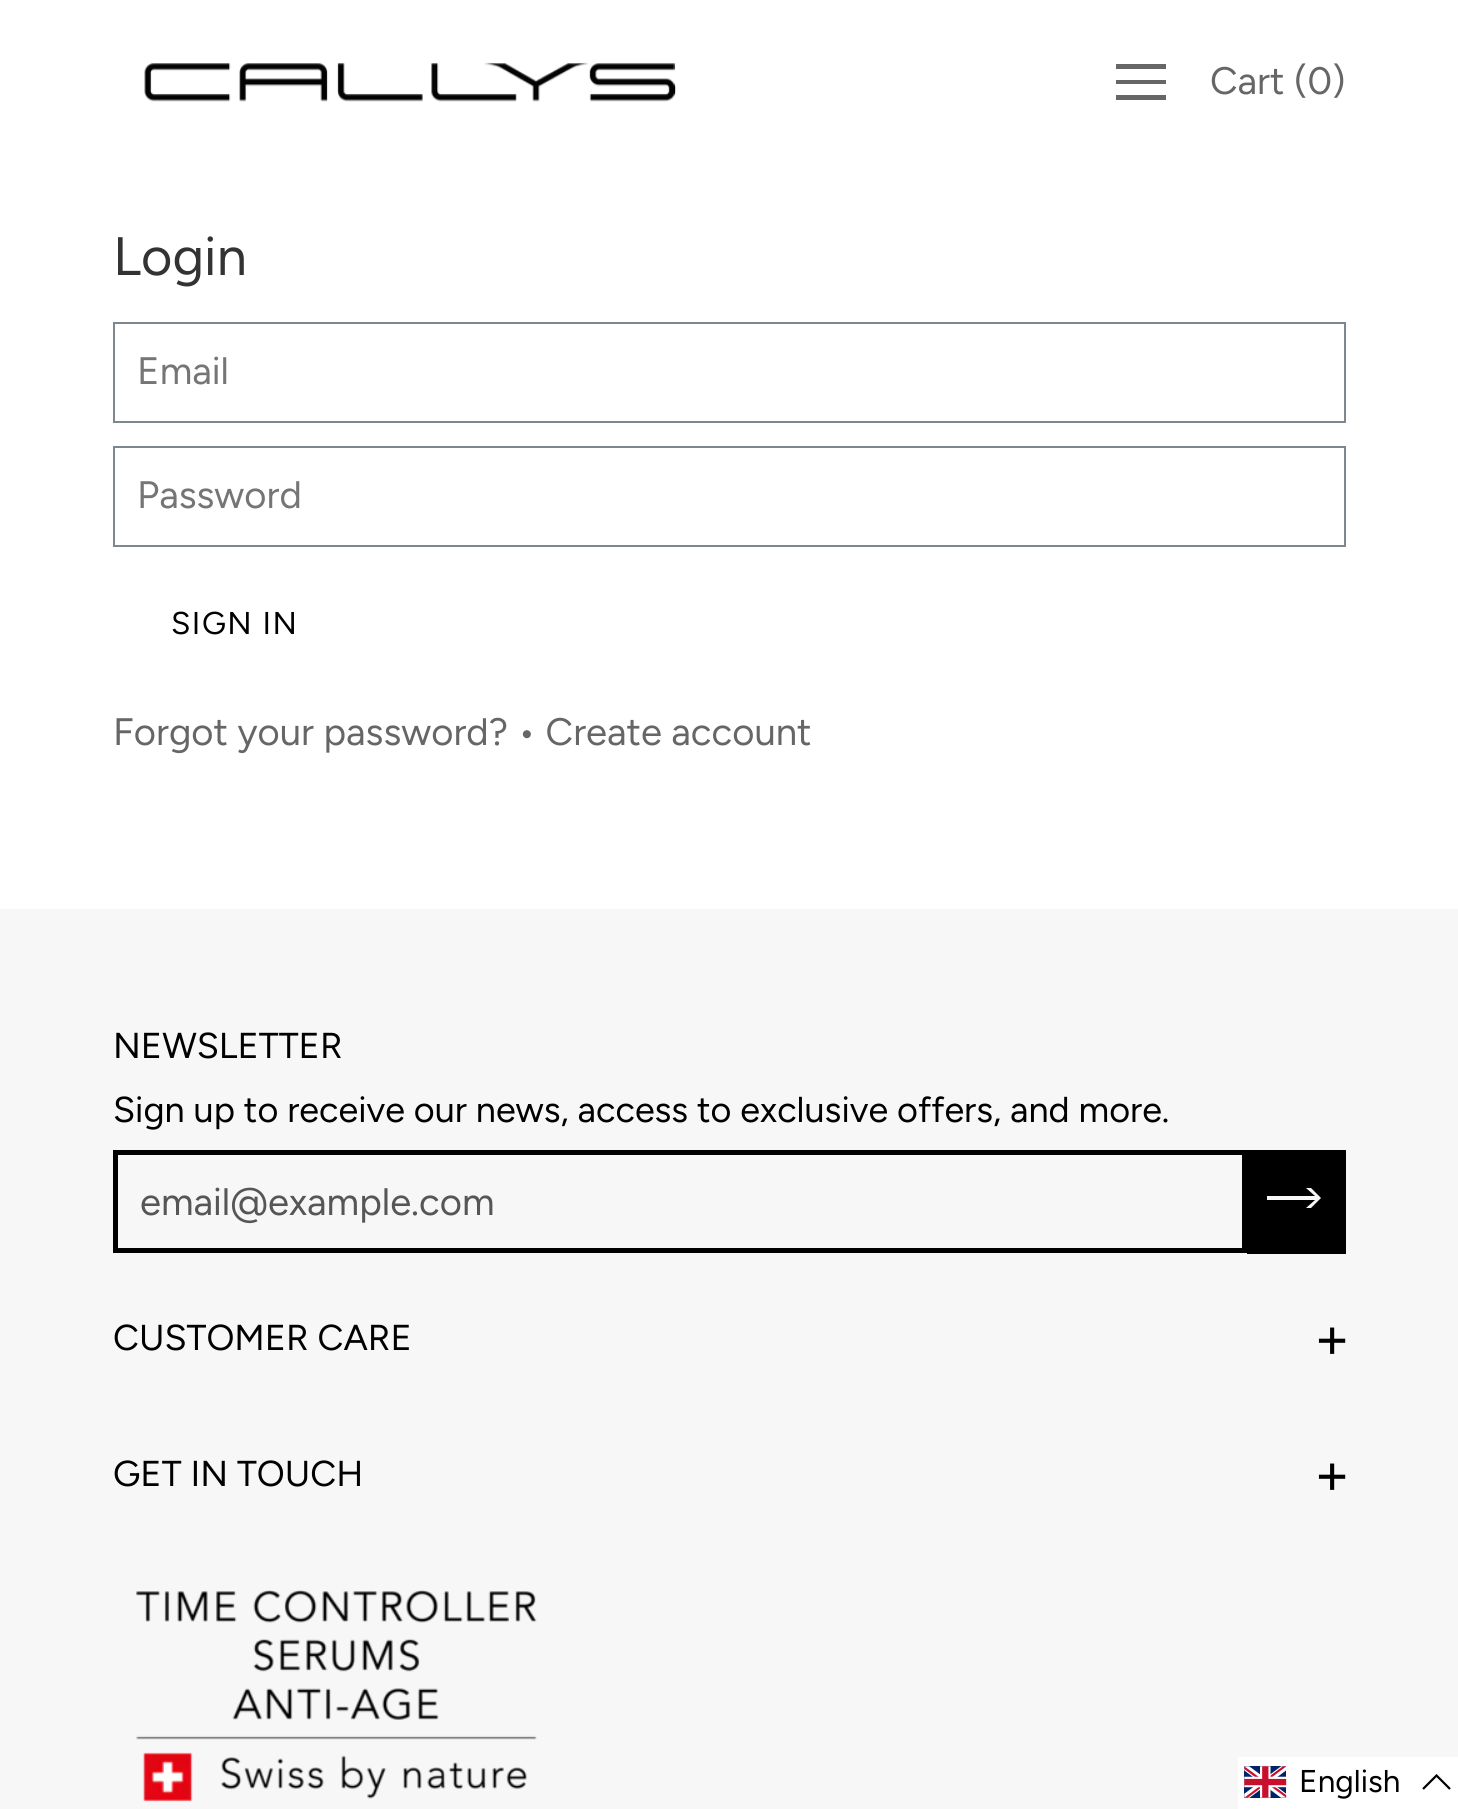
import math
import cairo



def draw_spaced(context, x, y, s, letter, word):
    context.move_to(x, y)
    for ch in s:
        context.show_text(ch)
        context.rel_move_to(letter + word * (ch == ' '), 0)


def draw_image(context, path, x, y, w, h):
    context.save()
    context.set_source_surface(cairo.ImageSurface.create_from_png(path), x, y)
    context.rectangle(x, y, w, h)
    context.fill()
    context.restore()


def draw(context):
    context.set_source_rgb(1, 1, 1)
    context.paint()
    draw_image(context, "images/1.png", 144, 62, 532, 40)
    context.set_source_rgb(102 / 255, 102 / 255, 102 / 255)
    context.new_path()
    context.move_to(1116, 64)
    context.line_to(1116, 69)
    context.line_to(1166, 69)
    context.line_to(1166, 64)
    context.close_path()
    context.move_to(1116, 80)
    context.line_to(1116, 84)
    context.line_to(1166, 84)
    context.line_to(1166, 80)
    context.close_path()
    context.move_to(1116, 95)
    context.line_to(1116, 100)
    context.line_to(1166, 100)
    context.line_to(1166, 95)
    context.close_path()
    context.fill()
    context.rectangle(114, 323, 1231, 99)
    context.set_source_rgb(124 / 255, 135 / 255, 142 / 255)
    context.stroke()
    context.rectangle(114, 447, 1231, 99)
    context.stroke()
    context.set_source_rgb(247 / 255, 247 / 255, 247 / 255)
    context.rectangle(0, 909, 1458, 900)
    context.fill()
    context.rectangle(115.5, 1152.5, 1129, 98)
    context.set_source_rgb(0, 0, 0)
    context.set_line_width(5)
    context.stroke()
    context.rectangle(1247, 1150, 99, 104)
    context.fill()
    context.set_source_rgb(247 / 255, 247 / 255, 247 / 255)
    context.new_path()
    context.move_to(1267, 1200)
    context.line_to(1315, 1200)
    context.line_to(1306, 1208)
    context.line_to(1311, 1208)
    context.line_to(1321, 1198)
    context.line_to(1311, 1188)
    context.line_to(1306, 1188)
    context.line_to(1315, 1196)
    context.line_to(1267, 1196)
    context.close_path()
    context.fill()
    draw_image(context, "images/2.png", 136, 1590, 401, 212)
    context.set_source_rgb(1, 1, 1)
    context.rectangle(1238, 1757, 220, 52)
    context.fill()
    draw_image(context, "images/3.png", 1244, 1766, 43, 32)
    context.new_path()
    context.move_to(1450, 1789)
    context.line_to(1436.5, 1775.5)
    context.line_to(1423, 1789)
    context.set_source_rgb(0, 0, 0)
    context.set_line_width(2.2)
    context.stroke()
    context.select_font_face("Figtree")
    context.set_font_size(38.25)
    context.set_source_rgb(102 / 255, 102 / 255, 102 / 255)
    context.move_to(1210, 94)
    context.show_text("Cart (0)")
    context.set_font_size(54)
    context.set_source_rgb(51 / 255, 51 / 255, 51 / 255)
    context.move_to(113, 275)
    context.show_text("Login")
    context.set_font_size(38.25)
    context.set_source_rgb(117 / 255, 117 / 255, 117 / 255)
    context.move_to(137, 384)
    context.show_text("Email")
    context.move_to(137, 508)
    context.show_text("Password")
    context.set_font_size(31.5)
    context.set_source_rgb(0, 0, 0)
    draw_spaced(context, 171, 634, "SIGN IN", 1.5, 0)
    context.set_font_size(38.25)
    context.set_source_rgb(102 / 255, 102 / 255, 102 / 255)
    context.move_to(113, 745)
    context.show_text("Forgot your password? • Create account")
    context.set_font_size(36)
    context.set_source_rgb(0, 0, 0)
    context.move_to(113, 1058)
    context.show_text("NEWSLETTER")
    context.move_to(113, 1122)
    context.show_text("Sign up to receive our news, access to exclusive offers, and more.")
    context.set_font_size(38.25)
    context.set_source_rgb(86 / 255, 86 / 255, 86 / 255)
    context.move_to(140, 1215)
    context.show_text("email@example.com")
    context.set_font_size(36)
    context.set_source_rgb(0, 0, 0)
    context.move_to(113, 1350)
    context.show_text("CUSTOMER CARE")
    context.set_font_size(58)
    context.move_to(1314, 1358)
    context.show_text("+")
    context.set_font_size(36)
    context.move_to(113, 1486)
    context.show_text("GET IN TOUCH")
    context.set_font_size(58)
    context.move_to(1314, 1494)
    context.show_text("+")
    context.set_font_size(31.5)
    context.move_to(1299, 1792)
    context.show_text("English")


surface = cairo.ImageSurface(cairo.Format.RGB24, 1458, 1809)
context = cairo.Context(surface)
options = cairo.FontOptions()
options.set_hint_metrics(cairo.HintMetrics.OFF)
options.set_hint_style(cairo.HintStyle.NONE)
context.set_font_options(options)
context.set_miter_limit(4)
draw(context)
surface.write_to_png("out.png")
